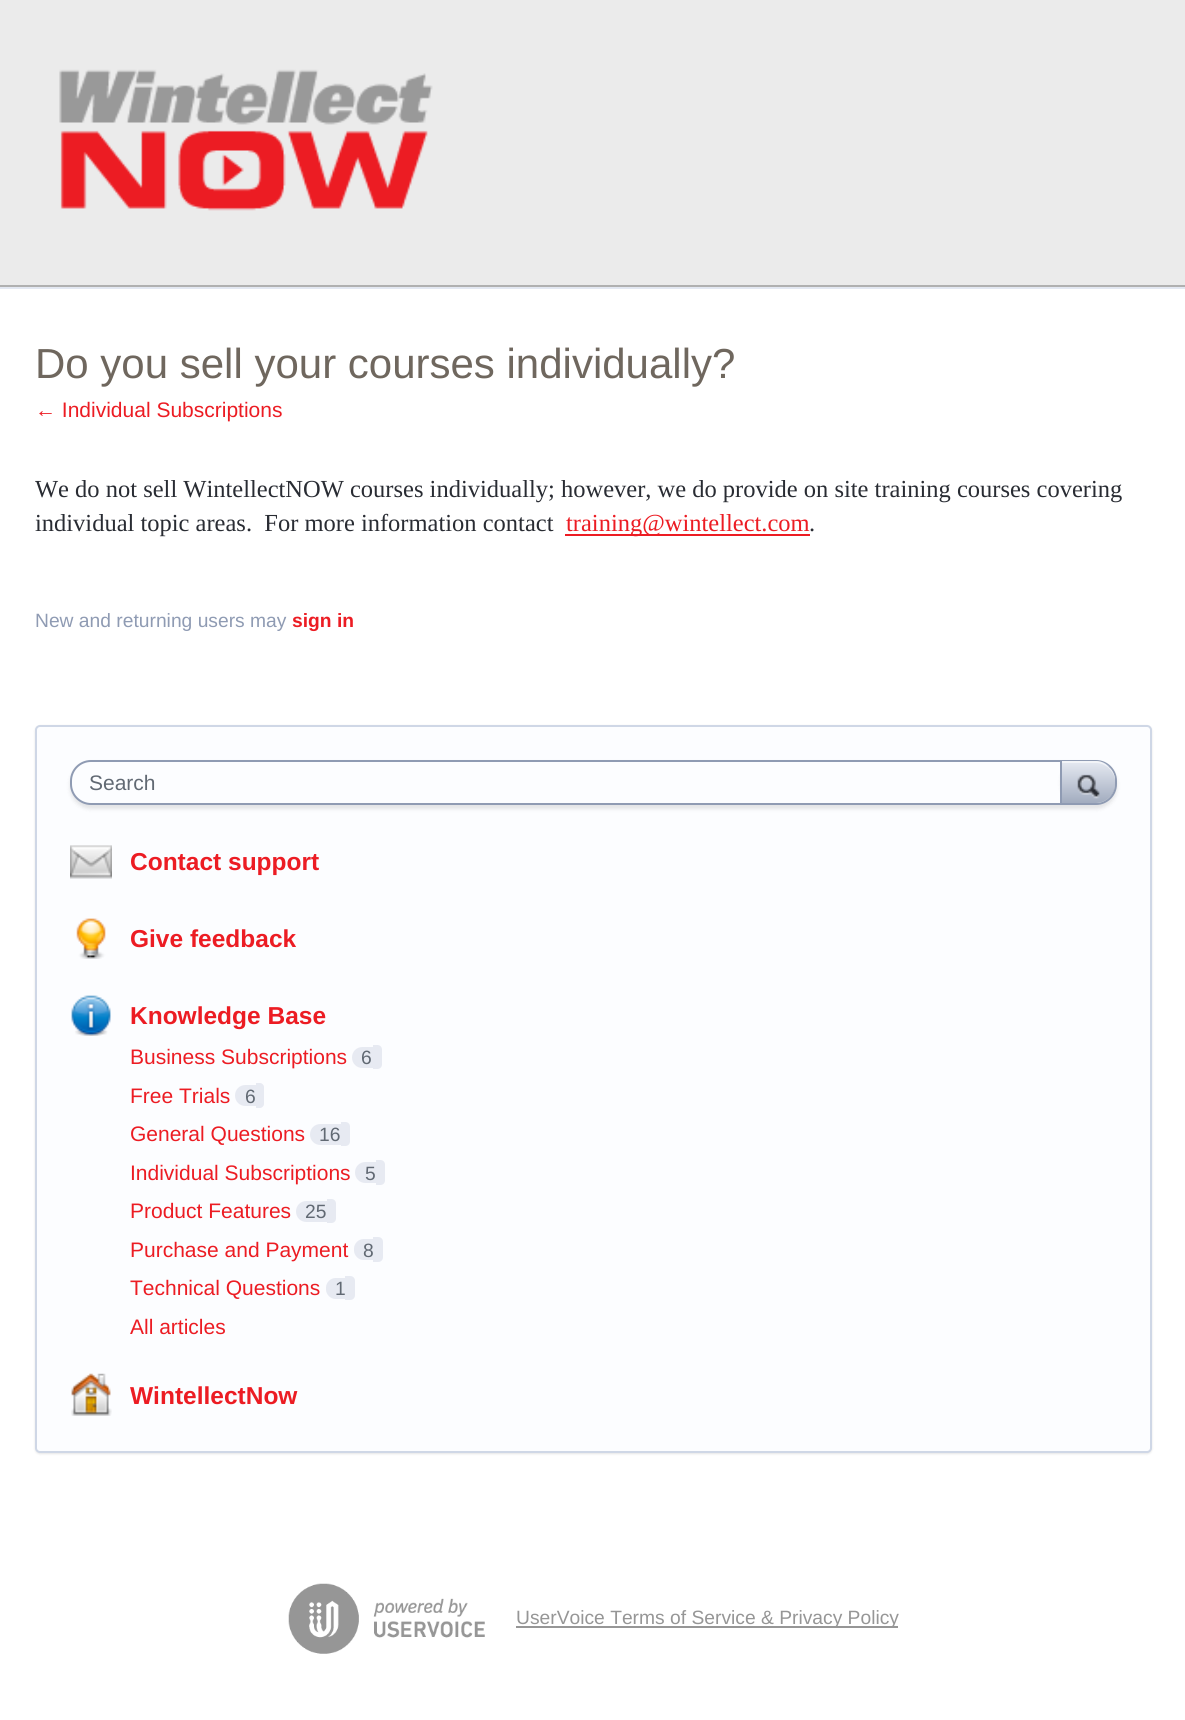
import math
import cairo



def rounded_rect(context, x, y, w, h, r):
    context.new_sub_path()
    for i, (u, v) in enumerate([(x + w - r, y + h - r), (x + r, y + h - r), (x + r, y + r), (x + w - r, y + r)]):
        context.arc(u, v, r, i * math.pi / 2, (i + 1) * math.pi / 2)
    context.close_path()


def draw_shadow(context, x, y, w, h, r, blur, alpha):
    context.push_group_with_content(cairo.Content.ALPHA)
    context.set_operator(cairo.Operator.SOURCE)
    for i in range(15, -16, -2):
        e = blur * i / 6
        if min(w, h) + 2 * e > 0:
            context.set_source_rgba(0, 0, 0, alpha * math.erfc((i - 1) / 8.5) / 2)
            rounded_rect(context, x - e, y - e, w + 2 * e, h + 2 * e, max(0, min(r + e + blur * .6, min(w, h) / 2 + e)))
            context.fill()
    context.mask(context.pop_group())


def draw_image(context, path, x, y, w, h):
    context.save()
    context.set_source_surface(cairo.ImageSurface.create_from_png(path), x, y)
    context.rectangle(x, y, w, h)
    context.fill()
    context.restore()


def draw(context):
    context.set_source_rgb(1, 1, 1)
    context.paint()
    context.set_source_rgb(235 / 255, 235 / 255, 235 / 255)
    context.rectangle(0, 0, 1185, 285)
    context.fill()
    context.set_source_rgb(176 / 255, 176 / 255, 176 / 255)
    context.rectangle(0, 285, 1185, 2)
    context.fill()
    draw_image(context, "images/1.png", 59, 69, 374, 142)
    context.set_source_rgb(227 / 255, 232 / 255, 242 / 255)
    context.rectangle(0, 287, 1185, 2)
    context.fill()
    context.set_source_rgb(236 / 255, 28 / 255, 35 / 255)
    context.rectangle(565, 534, 245, 2)
    context.fill()
    context.set_source_rgb(0, 0, 0)
    draw_shadow(context, 35, 726, 1117, 728, 5, 1, 0.1)
    context.set_source_rgb(252 / 255, 253 / 255, 1)
    rounded_rect(context, 36, 726, 1115, 726, 4)
    context.fill_preserve()
    context.set_source_rgb(207 / 255, 215 / 255, 230 / 255)
    context.stroke()
    context.set_source_rgb(0, 0, 0)
    draw_shadow(context, 70, 763, 1047, 46, 21, 2, 0.1)
    context.set_source_rgb(252 / 255, 253 / 255, 1)
    rounded_rect(context, 71, 761, 1045, 43, 20)
    context.fill_preserve()
    context.set_source_rgb(143 / 255, 155 / 255, 179 / 255)
    context.stroke()
    context.save()
    rounded_rect(context, 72, 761, 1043, 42, 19)
    context.clip()
    context.set_source_rgb(0, 0, 0)
    draw_shadow(context, 1061, 761, 56, 44, 21, 2, 0.1)
    context.restore()
    gradient = cairo.LinearGradient(1062, 761, 1062, 803)
    gradient.add_color_stop_rgba(0, 230 / 255, 234 / 255, 242 / 255, 1)
    gradient.add_color_stop_rgba(1, 162 / 255, 172 / 255, 191 / 255, 1)
    context.set_source(gradient)
    context.new_path()
    context.move_to(1062, 761)
    context.line_to(1096, 761)
    context.curve_to(1106, 761, 1115, 770, 1115, 780)
    context.line_to(1115, 782)
    context.curve_to(1115, 794, 1106, 803, 1096, 803)
    context.line_to(1062, 803)
    context.close_path()
    context.fill()
    context.set_source_rgba(1, 1, 1, 0.5)
    context.new_path()
    context.move_to(1062, 761)
    context.line_to(1096, 761)
    context.curve_to(1105, 761, 1114, 769, 1115, 779)
    context.curve_to(1113, 770, 1105, 763, 1096, 763)
    context.line_to(1062, 763)
    context.close_path()
    context.fill()
    context.set_source_rgb(163 / 255, 177 / 255, 204 / 255)
    context.new_path()
    context.move_to(1096, 761)
    context.curve_to(1101, 761, 1106, 763, 1109.5, 766.5)
    context.line_to(1109, 767)
    context.curve_to(1106, 763, 1101, 761, 1096, 761)
    context.close_path()
    context.fill()
    context.set_source_rgb(143 / 255, 155 / 255, 179 / 255)
    context.set_fill_rule(cairo.FillRule.EVEN_ODD)
    context.new_path()
    context.move_to(1109, 767)
    context.curve_to(1113, 770, 1115, 775, 1115, 780)
    context.curve_to(1115, 775, 1113, 770, 1109.5, 766.5)
    context.close_path()
    context.move_to(1115, 782)
    context.line_to(1115, 784)
    context.curve_to(1115, 794.5, 1106.5, 803, 1096, 803)
    context.curve_to(1106, 803, 1115, 794, 1115, 782)
    context.close_path()
    context.fill()
    context.rectangle(1060, 761, 2, 42)
    context.fill()
    draw_image(context, "images/2.png", 1077, 774, 23, 25)
    draw_image(context, "images/3.png", 70, 845, 42, 34)
    draw_image(context, "images/4.png", 76, 918, 30, 41)
    draw_image(context, "images/5.png", 71, 995, 40, 41)
    context.set_source_rgb(231 / 255, 234 / 255, 242 / 255)
    context.new_path()
    context.move_to(362.5, 1047)
    context.line_to(373, 1047)
    context.line_to(373, 1068)
    context.line_to(362.5, 1068)
    context.curve_to(356.5, 1068, 352, 1063.5, 352, 1057.5)
    context.curve_to(352, 1051.5, 356.5, 1047, 362.5, 1047)
    context.close_path()
    context.fill()
    context.new_path()
    context.move_to(373, 1045)
    context.line_to(377.5, 1045)
    context.curve_to(380, 1045, 382, 1047, 382, 1049.5)
    context.line_to(382, 1064.5)
    context.curve_to(382, 1067, 380, 1069, 377.5, 1069)
    context.line_to(373, 1069)
    context.close_path()
    context.fill()
    context.new_path()
    context.move_to(245.5, 1085)
    context.line_to(256, 1085)
    context.line_to(256, 1106)
    context.line_to(245.5, 1106)
    context.curve_to(239.5, 1106, 235, 1101.5, 235, 1095.5)
    context.curve_to(235, 1089.5, 239.5, 1085, 245.5, 1085)
    context.close_path()
    context.fill()
    context.new_path()
    context.move_to(256, 1083)
    context.line_to(260, 1083)
    context.curve_to(262, 1083, 264, 1085, 264, 1087)
    context.line_to(264, 1104)
    context.curve_to(264, 1106, 262, 1108, 260, 1108)
    context.line_to(256, 1108)
    context.close_path()
    context.fill()
    context.new_path()
    context.move_to(320.5, 1124)
    context.line_to(341, 1124)
    context.line_to(341, 1145)
    context.line_to(320.5, 1145)
    context.curve_to(314.5, 1145, 310, 1140.5, 310, 1134.5)
    context.curve_to(310, 1128.5, 314.5, 1124, 320.5, 1124)
    context.close_path()
    context.fill()
    context.new_path()
    context.move_to(341, 1122)
    context.line_to(345.5, 1122)
    context.curve_to(348, 1122, 350, 1124, 350, 1126.5)
    context.line_to(350, 1141.5)
    context.curve_to(350, 1144, 348, 1146, 345.5, 1146)
    context.line_to(341, 1146)
    context.close_path()
    context.fill()
    context.new_path()
    context.move_to(365.5, 1162)
    context.line_to(376, 1162)
    context.line_to(376, 1183)
    context.line_to(365.5, 1183)
    context.curve_to(359.5, 1183, 355, 1178.5, 355, 1172.5)
    context.curve_to(355, 1166.5, 359.5, 1162, 365.5, 1162)
    context.close_path()
    context.fill()
    context.new_path()
    context.move_to(376, 1160)
    context.line_to(380.5, 1160)
    context.curve_to(383, 1160, 385, 1162, 385, 1164.5)
    context.line_to(385, 1180.5)
    context.curve_to(385, 1183, 383, 1185, 380.5, 1185)
    context.line_to(376, 1185)
    context.close_path()
    context.fill()
    context.new_path()
    context.move_to(306.5, 1201)
    context.line_to(327, 1201)
    context.line_to(327, 1222)
    context.line_to(306.5, 1222)
    context.curve_to(300.5, 1222, 296, 1217.5, 296, 1211.5)
    context.curve_to(296, 1205.5, 300.5, 1201, 306.5, 1201)
    context.close_path()
    context.fill()
    context.new_path()
    context.move_to(327, 1199)
    context.line_to(331.5, 1199)
    context.curve_to(334, 1199, 336, 1201, 336, 1203.5)
    context.line_to(336, 1218.5)
    context.curve_to(336, 1221, 334, 1223, 331.5, 1223)
    context.line_to(327, 1223)
    context.close_path()
    context.fill()
    context.new_path()
    context.move_to(363.5, 1239)
    context.line_to(373, 1239)
    context.line_to(373, 1260)
    context.line_to(363.5, 1260)
    context.curve_to(358.5, 1260, 354, 1255.5, 354, 1250.5)
    context.line_to(354, 1248.5)
    context.curve_to(354, 1243.5, 358.5, 1239, 363.5, 1239)
    context.close_path()
    context.fill()
    context.new_path()
    context.move_to(373, 1237)
    context.line_to(378, 1237)
    context.curve_to(381, 1237, 383, 1239, 383, 1242)
    context.line_to(383, 1257)
    context.curve_to(383, 1260, 381, 1262, 378, 1262)
    context.line_to(373, 1262)
    context.close_path()
    context.fill()
    context.new_path()
    context.move_to(335.5, 1278)
    context.line_to(345, 1278)
    context.line_to(345, 1299)
    context.line_to(335.5, 1299)
    context.curve_to(330.5, 1299, 326, 1294.5, 326, 1289.5)
    context.line_to(326, 1287.5)
    context.curve_to(326, 1282.5, 330.5, 1278, 335.5, 1278)
    context.close_path()
    context.fill()
    context.new_path()
    context.move_to(345, 1276)
    context.line_to(350, 1276)
    context.curve_to(353, 1276, 355, 1278, 355, 1281)
    context.line_to(355, 1295)
    context.curve_to(355, 1298, 353, 1300, 350, 1300)
    context.line_to(345, 1300)
    context.close_path()
    context.fill()
    draw_image(context, "images/6.png", 71, 1373, 41, 43)
    draw_image(context, "images/7.png", 288, 1583, 197, 71)
    context.set_source_rgb(150 / 255, 150 / 255, 150 / 255)
    context.rectangle(516, 1626, 382, 2)
    context.fill()
    context.select_font_face("Liberation Sans")
    context.set_font_size(42)
    context.set_source_rgb(111 / 255, 103 / 255, 94 / 255)
    context.move_to(35, 378)
    context.show_text("Do you sell your courses individually?")
    context.set_font_size(21)
    context.set_source_rgb(236 / 255, 28 / 255, 35 / 255)
    context.move_to(35, 417)
    context.show_text("← Individual Subscriptions")
    context.select_font_face("Liberation Serif")
    context.set_font_size(24.5)
    context.set_source_rgb(41 / 255, 44 / 255, 51 / 255)
    context.move_to(35, 497)
    context.show_text("We do not sell WintellectNOW courses individually; however, we do provide on site training courses covering")
    context.move_to(35, 531)
    context.show_text("individual topic areas.  For more information contact")
    context.set_source_rgb(236 / 255, 28 / 255, 35 / 255)
    context.move_to(566, 531)
    context.show_text("training@wintellect.com")
    context.set_source_rgb(41 / 255, 44 / 255, 51 / 255)
    context.move_to(809, 531)
    context.show_text(".")
    context.select_font_face("Liberation Sans")
    context.set_font_size(19.25)
    context.set_source_rgb(143 / 255, 155 / 255, 179 / 255)
    context.move_to(35, 627)
    context.show_text("New and returning users may")
    context.select_font_face("Liberation Sans", cairo.FontSlant.NORMAL, cairo.FontWeight.BOLD)
    context.set_source_rgb(236 / 255, 28 / 255, 35 / 255)
    context.move_to(292, 627)
    context.show_text("sign in")
    context.select_font_face("Liberation Sans")
    context.set_font_size(21)
    context.set_source_rgb(97 / 255, 105 / 255, 115 / 255)
    context.move_to(89, 790)
    context.show_text("Search")
    context.select_font_face("Liberation Sans", cairo.FontSlant.NORMAL, cairo.FontWeight.BOLD)
    context.set_font_size(24.5)
    context.set_source_rgb(236 / 255, 28 / 255, 35 / 255)
    context.move_to(130, 870)
    context.show_text("Contact support")
    context.move_to(130, 947)
    context.show_text("Give feedback")
    context.move_to(130, 1024)
    context.show_text("Knowledge Base")
    context.select_font_face("Liberation Sans")
    context.set_font_size(21)
    context.move_to(130, 1064)
    context.show_text("Business Subscriptions")
    context.set_font_size(19.25)
    context.set_source_rgb(97 / 255, 105 / 255, 115 / 255)
    context.move_to(361, 1064)
    context.show_text("6")
    context.set_font_size(21)
    context.set_source_rgb(236 / 255, 28 / 255, 35 / 255)
    context.move_to(130, 1103)
    context.show_text("Free Trials")
    context.set_font_size(19.25)
    context.set_source_rgb(97 / 255, 105 / 255, 115 / 255)
    context.move_to(245, 1103)
    context.show_text("6")
    context.set_font_size(21)
    context.set_source_rgb(236 / 255, 28 / 255, 35 / 255)
    context.move_to(130, 1141)
    context.show_text("General Questions")
    context.set_font_size(19.25)
    context.set_source_rgb(97 / 255, 105 / 255, 115 / 255)
    context.move_to(319, 1141)
    context.show_text("16")
    context.set_font_size(21)
    context.set_source_rgb(236 / 255, 28 / 255, 35 / 255)
    context.move_to(130, 1180)
    context.show_text("Individual Subscriptions")
    context.set_font_size(19.25)
    context.set_source_rgb(97 / 255, 105 / 255, 115 / 255)
    context.move_to(365, 1180)
    context.show_text("5")
    context.set_font_size(21)
    context.set_source_rgb(236 / 255, 28 / 255, 35 / 255)
    context.move_to(130, 1218)
    context.show_text("Product Features")
    context.set_font_size(19.25)
    context.set_source_rgb(97 / 255, 105 / 255, 115 / 255)
    context.move_to(305, 1218)
    context.show_text("25")
    context.set_font_size(21)
    context.set_source_rgb(236 / 255, 28 / 255, 35 / 255)
    context.move_to(130, 1257)
    context.show_text("Purchase and Payment")
    context.set_font_size(19.25)
    context.set_source_rgb(97 / 255, 105 / 255, 115 / 255)
    context.move_to(363, 1257)
    context.show_text("8")
    context.set_font_size(21)
    context.set_source_rgb(236 / 255, 28 / 255, 35 / 255)
    context.move_to(130, 1295)
    context.show_text("Technical Questions")
    context.set_font_size(19.25)
    context.set_source_rgb(97 / 255, 105 / 255, 115 / 255)
    context.move_to(335, 1295)
    context.show_text("1")
    context.set_font_size(21)
    context.set_source_rgb(236 / 255, 28 / 255, 35 / 255)
    context.move_to(130, 1334)
    context.show_text("All articles")
    context.select_font_face("Liberation Sans", cairo.FontSlant.NORMAL, cairo.FontWeight.BOLD)
    context.set_font_size(24.5)
    context.move_to(130, 1404)
    context.show_text("WintellectNow")
    context.select_font_face("Liberation Sans")
    context.set_font_size(19.25)
    context.set_source_rgb(150 / 255, 150 / 255, 150 / 255)
    context.move_to(516, 1624)
    context.show_text("UserVoice Terms of Service & Privacy Policy")


surface = cairo.ImageSurface(cairo.Format.RGB24, 1185, 1720)
context = cairo.Context(surface)
options = cairo.FontOptions()
options.set_hint_metrics(cairo.HintMetrics.OFF)
options.set_hint_style(cairo.HintStyle.NONE)
context.set_font_options(options)
context.set_miter_limit(4)
draw(context)
surface.write_to_png("out.png")
